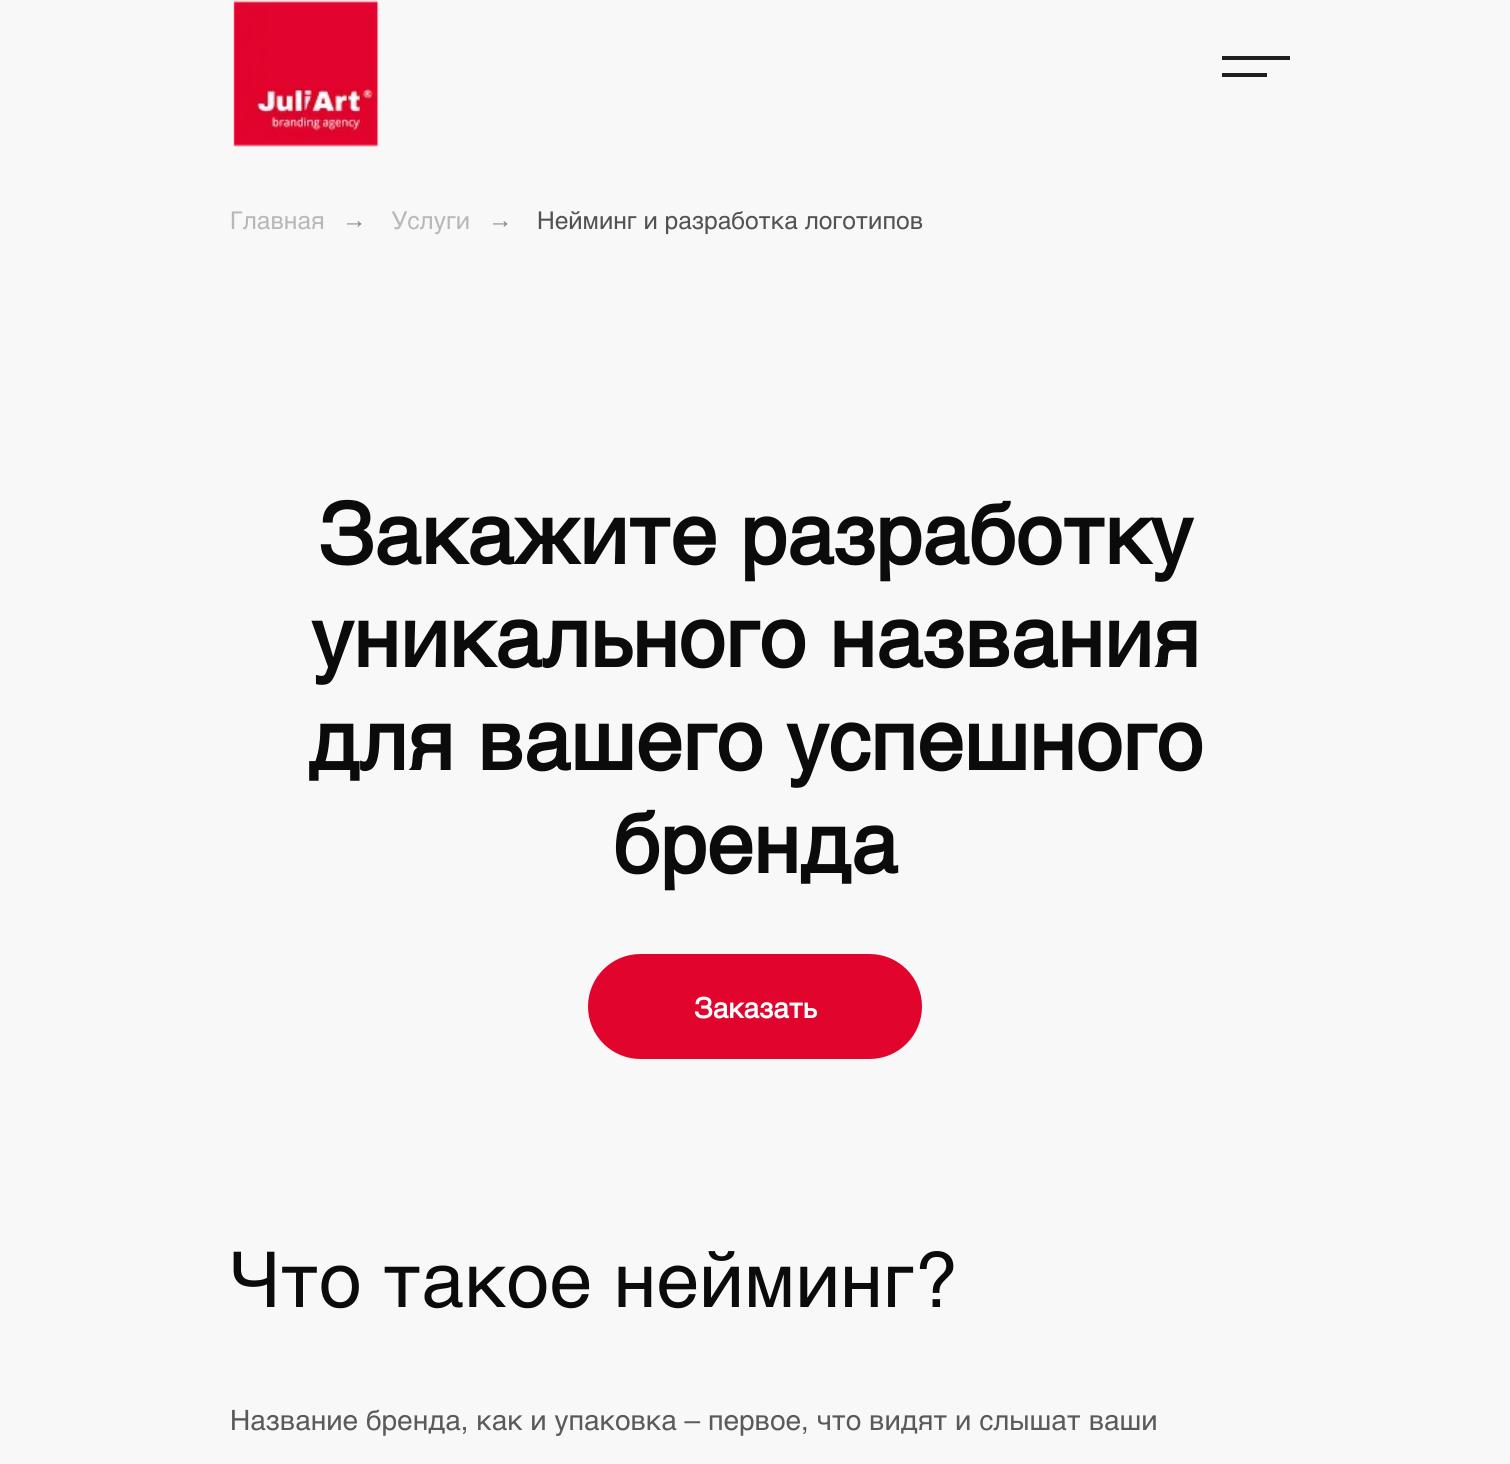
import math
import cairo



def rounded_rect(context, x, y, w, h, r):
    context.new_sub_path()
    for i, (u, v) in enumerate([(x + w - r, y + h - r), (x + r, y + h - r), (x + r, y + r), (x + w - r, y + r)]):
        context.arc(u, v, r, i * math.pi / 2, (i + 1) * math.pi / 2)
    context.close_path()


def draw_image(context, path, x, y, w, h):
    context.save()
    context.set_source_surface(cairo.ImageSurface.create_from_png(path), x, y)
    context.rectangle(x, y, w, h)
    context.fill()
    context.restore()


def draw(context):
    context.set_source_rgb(248 / 255, 248 / 255, 248 / 255)
    context.paint()
    draw_image(context, "images/1.png", 233, 0, 146, 147)
    context.set_source_rgb(31 / 255, 31 / 255, 31 / 255)
    context.rectangle(1222, 56, 68, 4)
    context.fill()
    context.rectangle(1222, 73, 45, 4)
    context.fill()
    context.set_source_rgb(225 / 255, 4 / 255, 45 / 255)
    rounded_rect(context, 588, 954, 334, 105, 52.5)
    context.fill()
    context.select_font_face("Helvetica")
    context.set_font_size(24.5)
    context.set_source_rgb(184 / 255, 184 / 255, 184 / 255)
    context.move_to(230, 229)
    context.show_text("Главная")
    context.select_font_face("Liberation Sans")
    context.set_source_rgb(133 / 255, 133 / 255, 133 / 255)
    context.move_to(342, 228)
    context.show_text("→")
    context.select_font_face("Helvetica")
    context.set_source_rgb(184 / 255, 184 / 255, 184 / 255)
    context.move_to(391, 229)
    context.show_text("Услуги")
    context.select_font_face("Liberation Sans")
    context.set_source_rgb(133 / 255, 133 / 255, 133 / 255)
    context.move_to(488, 228)
    context.show_text("→")
    context.select_font_face("Helvetica")
    context.set_source_rgb(82 / 255, 82 / 255, 82 / 255)
    context.move_to(537, 229)
    context.show_text("Нейминг и разработка логотипов")
    context.select_font_face("Helvetica", cairo.FontSlant.NORMAL, cairo.FontWeight.BOLD)
    context.set_font_size(84)
    context.set_source_rgb(11 / 255, 11 / 255, 11 / 255)
    context.move_to(318, 564)
    context.show_text("Закажите разработку")
    context.move_to(311, 667)
    context.show_text("уникального названия")
    context.move_to(308, 770)
    context.show_text("для вашего успешного")
    context.move_to(613, 873)
    context.show_text("бренда")
    context.set_font_size(28)
    context.set_source_rgb(1, 1, 1)
    context.move_to(694, 1018)
    context.show_text("Заказать")
    context.select_font_face("Helvetica")
    context.set_font_size(77)
    context.set_source_rgb(11 / 255, 11 / 255, 11 / 255)
    context.move_to(230, 1307)
    context.show_text("Что такое нейминг?")
    context.set_font_size(28)
    context.set_source_rgb(90 / 255, 90 / 255, 90 / 255)
    context.move_to(230, 1430)
    context.show_text("Название бренда, как и упаковка – первое, что видят и слышат ваши")


surface = cairo.ImageSurface(cairo.Format.RGB24, 1510, 1464)
context = cairo.Context(surface)
options = cairo.FontOptions()
options.set_hint_metrics(cairo.HintMetrics.OFF)
options.set_hint_style(cairo.HintStyle.NONE)
context.set_font_options(options)
context.set_miter_limit(4)
draw(context)
surface.write_to_png("out.png")
